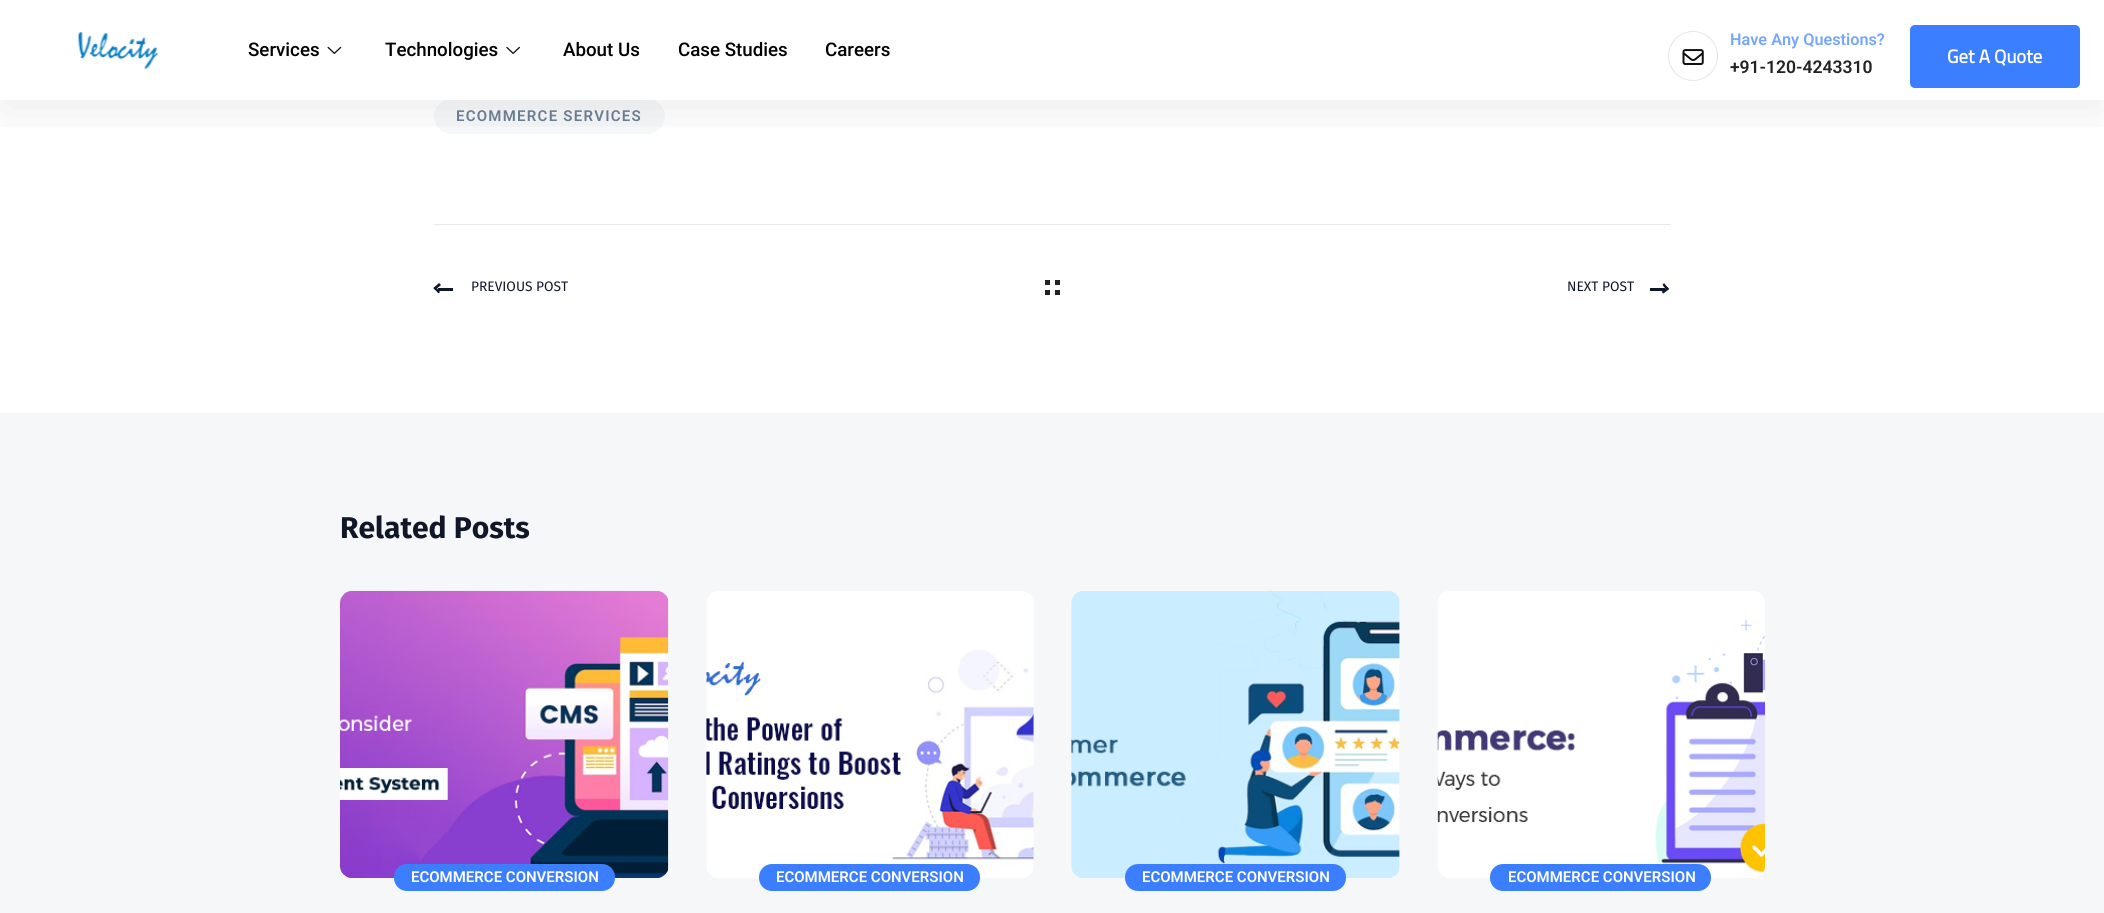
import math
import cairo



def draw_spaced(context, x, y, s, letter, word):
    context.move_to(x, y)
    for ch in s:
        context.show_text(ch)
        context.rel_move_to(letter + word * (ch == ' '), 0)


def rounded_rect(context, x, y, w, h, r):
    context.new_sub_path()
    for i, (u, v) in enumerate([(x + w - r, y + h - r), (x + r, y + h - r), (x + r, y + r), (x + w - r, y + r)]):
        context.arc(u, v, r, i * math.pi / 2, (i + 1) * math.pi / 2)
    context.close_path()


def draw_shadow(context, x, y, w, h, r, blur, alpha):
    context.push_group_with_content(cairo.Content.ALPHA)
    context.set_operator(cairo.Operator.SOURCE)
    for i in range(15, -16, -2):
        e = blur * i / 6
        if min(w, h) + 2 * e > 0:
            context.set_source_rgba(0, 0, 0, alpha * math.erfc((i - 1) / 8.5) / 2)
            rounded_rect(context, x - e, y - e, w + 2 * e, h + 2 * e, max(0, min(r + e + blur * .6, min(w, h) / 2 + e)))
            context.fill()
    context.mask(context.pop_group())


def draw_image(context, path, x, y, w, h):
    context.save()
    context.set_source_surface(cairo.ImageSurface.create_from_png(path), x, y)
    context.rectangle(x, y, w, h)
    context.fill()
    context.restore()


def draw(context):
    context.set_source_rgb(1, 1, 1)
    context.paint()
    context.set_source_rgb(245 / 255, 247 / 255, 248 / 255)
    rounded_rect(context, 434, 99, 231, 35, 17.5)
    context.fill()
    context.save()
    context.rectangle(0, 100, 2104, 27)
    context.clip()
    context.set_source_rgb(0, 0, 0)
    draw_shadow(context, 0, 13, 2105, 100, 0, 25, 0.07)
    context.restore()
    context.set_source_rgba(1, 1, 1, 0.94)
    context.rectangle(447, 99, 205, 1)
    context.fill()
    draw_image(context, "images/1.png", 78, 32, 80, 38)
    draw_image(context, "images/2.png", 327, 46, 15, 8)
    draw_image(context, "images/3.png", 506, 46, 14, 8)
    context.arc(1693, 56, 24.5, 0, 2 * math.pi)
    context.set_source_rgb(230 / 255, 230 / 255, 230 / 255)
    context.set_line_width(1)
    context.stroke()
    draw_image(context, "images/4.png", 1682, 49, 22, 16)
    context.set_source_rgb(59 / 255, 126 / 255, 1)
    rounded_rect(context, 1910, 25, 170, 63, 5)
    context.fill()
    context.set_source_rgb(231 / 255, 232 / 255, 235 / 255)
    context.rectangle(434, 224, 1237, 1)
    context.fill()
    context.set_source_rgb(16 / 255, 24 / 255, 40 / 255)
    context.rectangle(438, 288, 15, 3)
    context.fill()
    context.new_path()
    context.move_to(435.5, 286.5)
    context.line_to(440, 292)
    context.line_to(438.5, 293.5)
    context.line_to(433.5, 288)
    context.close_path()
    context.fill()
    context.new_path()
    context.move_to(439, 283)
    context.line_to(441, 285)
    context.line_to(435, 290)
    context.line_to(433.5, 288)
    context.close_path()
    context.fill()
    context.set_source_rgb(34 / 255, 34 / 255, 34 / 255)
    context.rectangle(1045, 280, 5, 5)
    context.fill()
    context.rectangle(1045, 290, 5, 5)
    context.fill()
    context.rectangle(1055, 280, 5, 5)
    context.fill()
    context.rectangle(1055, 290, 5, 5)
    context.fill()
    context.set_source_rgb(16 / 255, 24 / 255, 40 / 255)
    context.rectangle(1650, 288, 15, 3)
    context.fill()
    context.new_path()
    context.move_to(1667, 290.5)
    context.line_to(1662.5, 285)
    context.line_to(1664, 283)
    context.line_to(1669, 289)
    context.close_path()
    context.fill()
    context.new_path()
    context.move_to(1663.5, 293.5)
    context.line_to(1661.5, 292)
    context.line_to(1667.5, 287)
    context.line_to(1669, 289)
    context.close_path()
    context.fill()
    context.set_source_rgb(245 / 255, 247 / 255, 248 / 255)
    context.rectangle(0, 413, 2104, 500)
    context.fill()
    draw_image(context, "images/5.png", 340, 590, 329, 288)
    context.set_source_rgb(59 / 255, 126 / 255, 1)
    rounded_rect(context, 394, 864, 221, 27, 13)
    context.fill()
    draw_image(context, "images/6.png", 706, 591, 328, 287)
    rounded_rect(context, 759, 864, 221, 27, 13)
    context.fill()
    draw_image(context, "images/7.png", 1071, 591, 329, 287)
    rounded_rect(context, 1125, 864, 221, 27, 13)
    context.fill()
    draw_image(context, "images/8.png", 1437, 591, 328, 287)
    rounded_rect(context, 1490, 864, 221, 27, 13)
    context.fill()
    context.select_font_face("Roboto Medium")
    context.set_font_size(18.75)
    context.set_source_rgb(0, 0, 0)
    context.move_to(248, 56)
    context.show_text("Services")
    context.move_to(385, 56)
    context.show_text("Technologies")
    context.move_to(563, 56)
    context.show_text("About Us")
    context.move_to(678, 56)
    context.show_text("Case Studies")
    context.move_to(825, 56)
    context.show_text("Careers")
    context.select_font_face("Roboto SemiBold")
    context.set_font_size(16.25)
    context.set_source_rgb(118 / 255, 165 / 255, 1)
    context.move_to(1730, 45)
    context.show_text("Have Any Questions?")
    context.set_font_size(17.5)
    context.set_source_rgb(35 / 255, 35 / 255, 35 / 255)
    context.move_to(1730, 73)
    context.show_text("+91-120-4243310")
    context.select_font_face("Cairo", cairo.FontSlant.NORMAL, cairo.FontWeight.BOLD)
    context.set_font_size(18.75)
    context.set_source_rgb(1, 1, 1)
    context.move_to(1947, 63)
    context.show_text("Get A Quote")
    context.select_font_face("Roboto SemiBold")
    context.set_font_size(15)
    context.set_source_rgb(106 / 255, 124 / 255, 146 / 255)
    draw_spaced(context, 456, 121, "ECOMMERCE SERVICES", 1.25, 0)
    context.select_font_face("Fira Sans")
    context.set_font_size(13.75)
    context.set_source_rgb(16 / 255, 24 / 255, 40 / 255)
    context.move_to(471, 291)
    context.show_text("PREVIOUS POST")
    context.move_to(1567, 291)
    context.show_text("NEXT POST")
    context.select_font_face("Fira Sans", cairo.FontSlant.NORMAL, cairo.FontWeight.BOLD)
    context.set_font_size(30)
    context.move_to(340, 538)
    context.show_text("Related Posts")
    context.select_font_face("Roboto SemiBold")
    context.set_font_size(15)
    context.set_source_rgb(1, 1, 1)
    context.move_to(411, 882)
    context.show_text("ECOMMERCE CONVERSION")
    context.move_to(776, 882)
    context.show_text("ECOMMERCE CONVERSION")
    context.move_to(1142, 882)
    context.show_text("ECOMMERCE CONVERSION")
    context.move_to(1508, 882)
    context.show_text("ECOMMERCE CONVERSION")


surface = cairo.ImageSurface(cairo.Format.RGB24, 2104, 913)
context = cairo.Context(surface)
options = cairo.FontOptions()
options.set_hint_metrics(cairo.HintMetrics.OFF)
options.set_hint_style(cairo.HintStyle.NONE)
context.set_font_options(options)
context.set_miter_limit(4)
draw(context)
surface.write_to_png("out.png")
